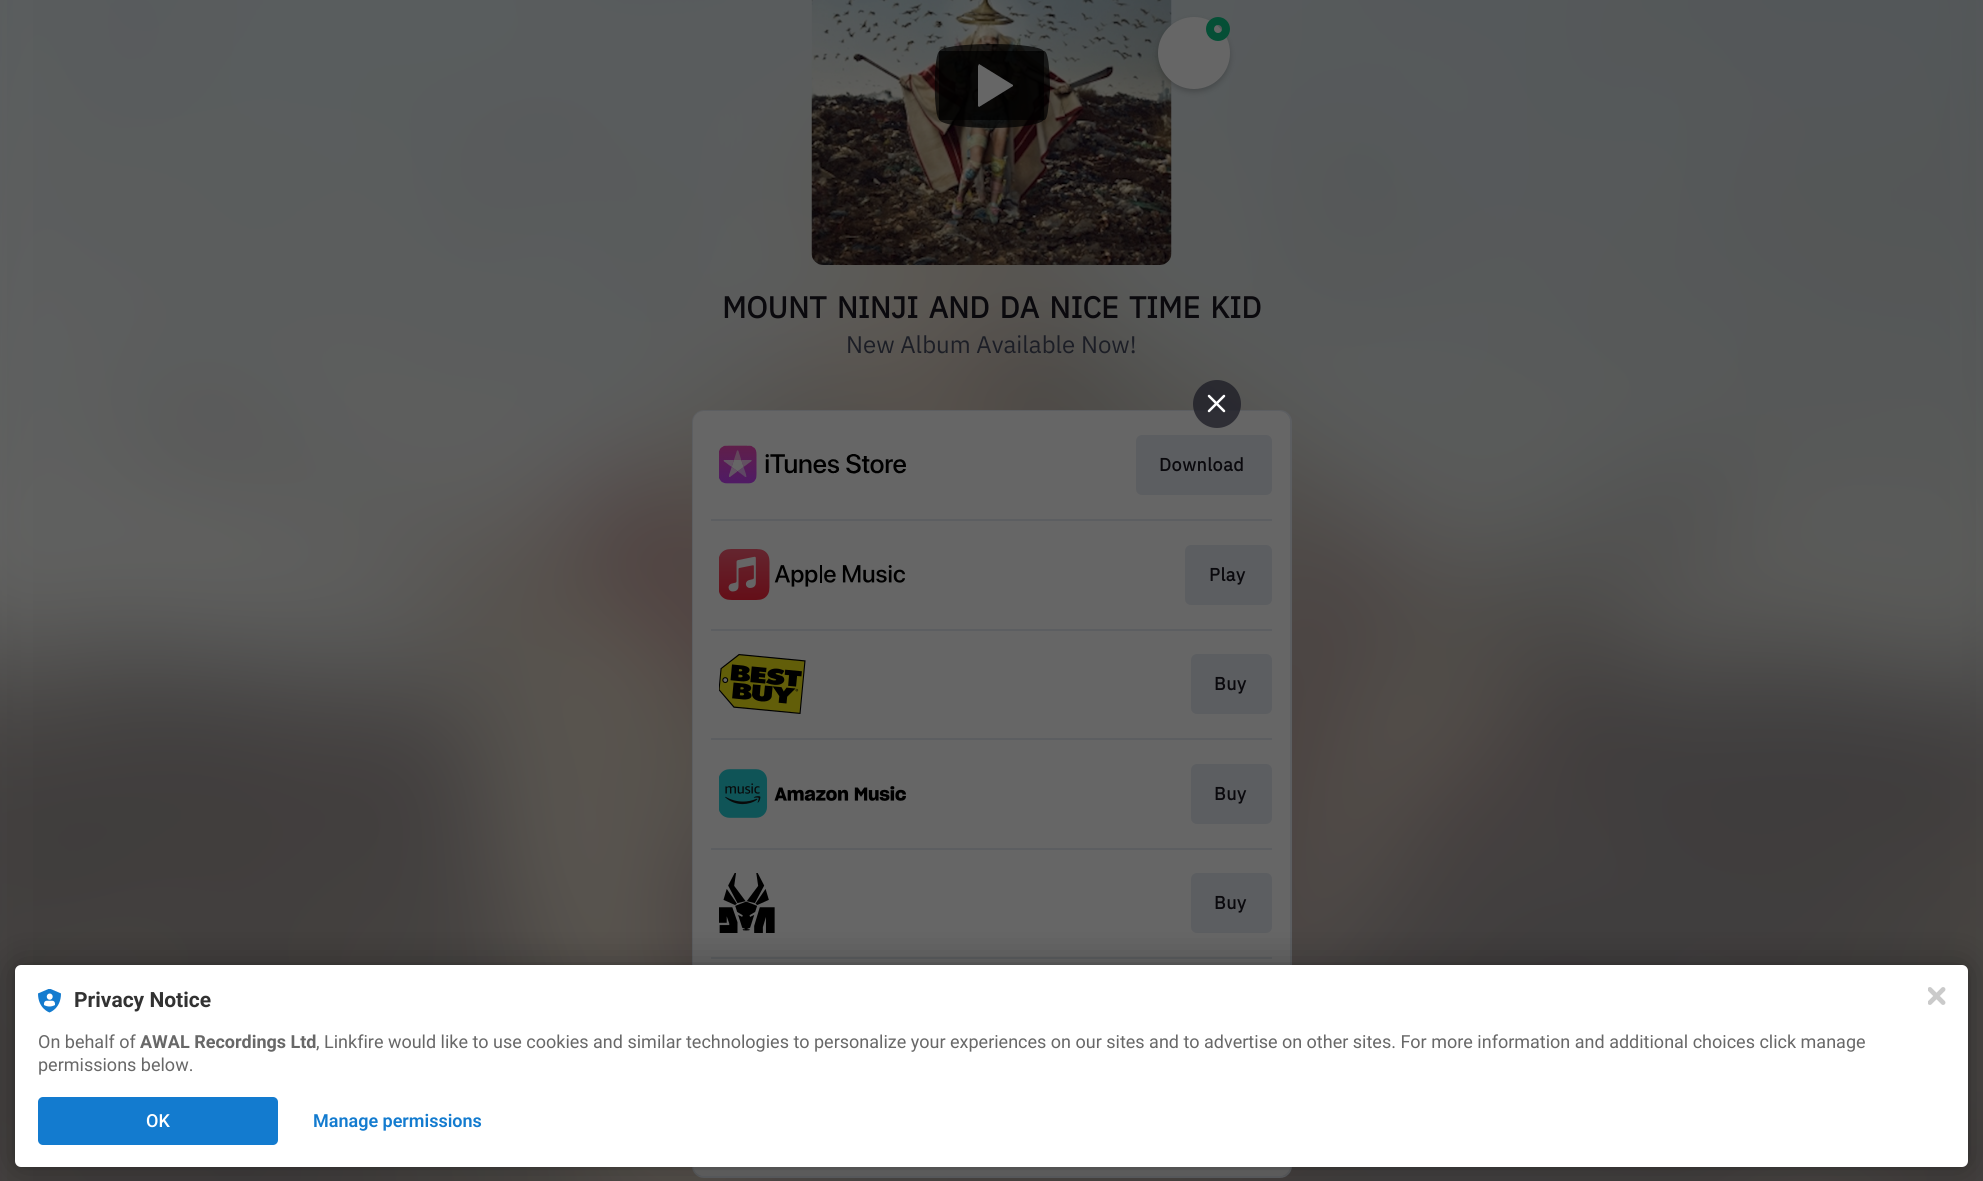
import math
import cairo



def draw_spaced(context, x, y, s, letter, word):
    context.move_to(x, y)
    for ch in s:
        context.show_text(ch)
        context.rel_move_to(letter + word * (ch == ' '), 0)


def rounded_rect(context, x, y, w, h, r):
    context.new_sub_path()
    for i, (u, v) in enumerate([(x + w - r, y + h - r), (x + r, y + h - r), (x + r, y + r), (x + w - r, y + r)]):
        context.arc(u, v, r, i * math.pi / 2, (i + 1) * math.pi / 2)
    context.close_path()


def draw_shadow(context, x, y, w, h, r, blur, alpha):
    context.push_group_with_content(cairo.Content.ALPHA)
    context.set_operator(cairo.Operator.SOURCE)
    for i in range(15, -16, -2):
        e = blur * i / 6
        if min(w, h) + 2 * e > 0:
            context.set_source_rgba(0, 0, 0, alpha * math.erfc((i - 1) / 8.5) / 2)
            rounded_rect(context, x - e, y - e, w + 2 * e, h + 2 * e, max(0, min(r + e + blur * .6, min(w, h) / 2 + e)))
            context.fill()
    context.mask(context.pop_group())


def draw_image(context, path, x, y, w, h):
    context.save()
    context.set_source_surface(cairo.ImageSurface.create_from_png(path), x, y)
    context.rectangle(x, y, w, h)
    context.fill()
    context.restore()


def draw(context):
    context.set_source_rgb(102 / 255, 102 / 255, 102 / 255)
    context.paint()
    draw_image(context, "images/1.png", 0, 0, 1983, 1181)
    draw_image(context, "images/2.png", 811, 0, 361, 265)
    context.set_source_rgb(0, 0, 0)
    draw_shadow(context, 1158, 20, 72, 72, 36, 3, 0.2)
    context.set_source_rgb(102 / 255, 102 / 255, 102 / 255)
    context.arc(1194, 53, 36, 0, 2 * math.pi)
    context.fill()
    context.arc(1218, 29, 8, 0, 2 * math.pi)
    context.set_source_rgb(5 / 255, 79 / 255, 54 / 255)
    context.set_line_width(8)
    context.stroke()
    context.set_source_rgb(102 / 255, 102 / 255, 102 / 255)
    rounded_rect(context, 693, 411, 598, 766, 11)
    context.fill_preserve()
    context.set_source_rgb(92 / 255, 94 / 255, 97 / 255)
    context.set_line_width(2)
    context.stroke()
    context.set_source_rgb(102 / 255, 102 / 255, 102 / 255)
    rounded_rect(context, 693, 411, 597, 765, 11)
    context.fill()
    context.set_source_rgba(24 / 255, 23 / 255, 33 / 255, 0.7)
    context.arc(1217, 404, 24, 0, 2 * math.pi)
    context.fill()
    context.new_path()
    context.move_to(1209, 396)
    context.line_to(1224, 411)
    context.move_to(1209, 411)
    context.line_to(1224, 396)
    context.set_source_rgb(1, 1, 1)
    context.set_line_width(2.5)
    context.set_line_cap(cairo.LineCap.ROUND)
    context.set_line_join(cairo.LineJoin.ROUND)
    context.stroke()
    context.set_source_rgba(0, 0, 0, 0.7)
    context.new_path()
    context.move_to(992, 44)
    context.curve_to(1020, 44, 1044, 47, 1044, 52)
    context.line_to(1044, 119)
    context.curve_to(1044, 124, 1020, 128, 992, 128)
    context.curve_to(963, 128, 939, 124, 939, 119)
    context.line_to(939, 52)
    context.curve_to(939, 47, 963, 44, 992, 44)
    context.close_path()
    context.fill()
    context.new_path()
    context.move_to(940, 51)
    context.line_to(1044, 51)
    context.curve_to(1050, 51, 1050, 88, 1050, 92)
    context.line_to(1048, 110)
    context.curve_to(1048, 111, 1047, 120, 1044, 120)
    context.line_to(940, 120)
    context.curve_to(933, 120, 933, 51, 940, 51)
    context.close_path()
    context.fill()
    context.set_source_rgb(102 / 255, 102 / 255, 102 / 255)
    context.new_path()
    context.move_to(1013, 85)
    context.line_to(979, 64)
    context.line_to(978, 66)
    context.line_to(978, 106)
    context.line_to(979, 107)
    context.line_to(1013, 86)
    context.close_path()
    context.fill()
    draw_image(context, "images/3.png", 719, 445, 187, 39)
    context.set_source_rgb(92 / 255, 94 / 255, 97 / 255)
    rounded_rect(context, 1136, 435, 136, 60, 6)
    context.fill()
    context.rectangle(711, 519, 561, 2)
    context.fill()
    draw_image(context, "images/4.png", 719, 549, 186, 51)
    rounded_rect(context, 1185, 545, 87, 60, 6)
    context.fill()
    context.rectangle(711, 629, 561, 2)
    context.fill()
    draw_image(context, "images/5.png", 719, 654, 87, 60)
    rounded_rect(context, 1191, 654, 81, 60, 6)
    context.fill()
    context.rectangle(711, 738, 561, 2)
    context.fill()
    draw_image(context, "images/6.png", 719, 769, 187, 49)
    rounded_rect(context, 1191, 764, 81, 60, 6)
    context.fill()
    context.rectangle(711, 848, 561, 2)
    context.fill()
    draw_image(context, "images/7.png", 719, 873, 56, 60)
    rounded_rect(context, 1191, 873, 81, 60, 6)
    context.fill()
    context.rectangle(711, 957, 561, 2)
    context.fill()
    context.set_source_rgb(0, 0, 0)
    draw_shadow(context, 15, 965, 1953, 202, 6, 3, 0.12)
    draw_shadow(context, 15, 965, 1953, 202, 6, 18, 0.3)
    context.set_source_rgb(1, 1, 1)
    rounded_rect(context, 15, 965, 1953, 202, 6)
    context.fill()
    draw_image(context, "images/8.png", 38, 989, 23, 24)
    context.set_source_rgb(19 / 255, 123 / 255, 207 / 255)
    rounded_rect(context, 38, 1097, 240, 48, 5)
    context.fill()
    draw_image(context, "images/9.png", 1928, 987, 18, 18)
    context.select_font_face("IBM Plex Sans", cairo.FontSlant.NORMAL, cairo.FontWeight.BOLD)
    context.set_font_size(30)
    context.set_source_rgb(10 / 255, 9 / 255, 13 / 255)
    draw_spaced(context, 722, 318, "MOUNT NINJI AND DA NICE TIME KID", 0, 3.25)
    context.select_font_face("IBM Plex Sans")
    context.set_font_size(24)
    context.set_source_rgb(28 / 255, 30 / 255, 38 / 255)
    context.move_to(846, 353)
    context.show_text("New Album Available Now!")
    context.select_font_face("IBM Plex Sans", cairo.FontSlant.NORMAL, cairo.FontWeight.BOLD)
    context.set_font_size(18)
    context.set_source_rgb(10 / 255, 9 / 255, 13 / 255)
    draw_spaced(context, 1159, 471, "Download", 0.5, 0)
    draw_spaced(context, 1209, 581, "Play", 0.5, 0)
    draw_spaced(context, 1214, 690, "Buy", 0.5, 0)
    draw_spaced(context, 1214, 800, "Buy", 0.5, 0)
    draw_spaced(context, 1214, 909, "Buy", 0.5, 0)
    context.select_font_face("Roboto", cairo.FontSlant.NORMAL, cairo.FontWeight.BOLD)
    context.set_font_size(21)
    context.set_source_rgb(50 / 255, 50 / 255, 50 / 255)
    context.move_to(74, 1007)
    context.show_text("Privacy Notice")
    context.select_font_face("Roboto")
    context.set_font_size(18)
    context.set_source_rgb(104 / 255, 104 / 255, 104 / 255)
    context.move_to(38, 1048)
    context.show_text("On behalf of")
    context.select_font_face("Roboto", cairo.FontSlant.NORMAL, cairo.FontWeight.BOLD)
    context.move_to(140, 1048)
    context.show_text("AWAL Recordings Ltd")
    context.select_font_face("Roboto")
    context.move_to(316, 1048)
    context.show_text(", Linkfire would like to use cookies and similar technologies to personalize your experiences on our sites and to advertise on other sites. For more information and additional choices click manage")
    context.move_to(38, 1071)
    context.show_text("permissions below.")
    context.select_font_face("Roboto Medium")
    context.set_source_rgb(1, 1, 1)
    context.move_to(146, 1127)
    context.show_text("OK")
    context.select_font_face("Roboto SemiBold")
    context.set_source_rgb(19 / 255, 123 / 255, 207 / 255)
    context.move_to(313, 1127)
    context.show_text("Manage permissions")


surface = cairo.ImageSurface(cairo.Format.RGB24, 1983, 1181)
context = cairo.Context(surface)
options = cairo.FontOptions()
options.set_hint_metrics(cairo.HintMetrics.OFF)
options.set_hint_style(cairo.HintStyle.NONE)
context.set_font_options(options)
context.set_miter_limit(4)
draw(context)
surface.write_to_png("out.png")
